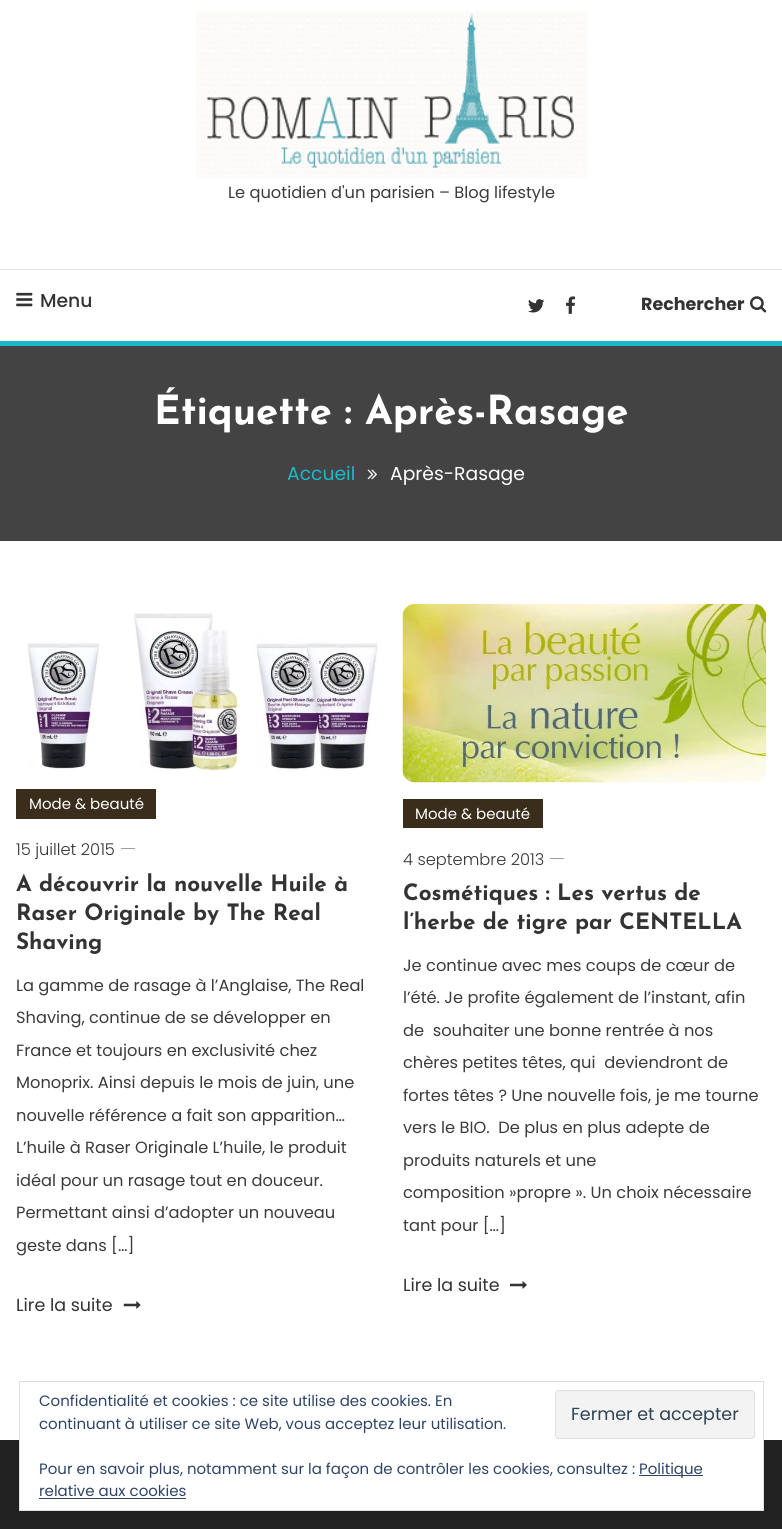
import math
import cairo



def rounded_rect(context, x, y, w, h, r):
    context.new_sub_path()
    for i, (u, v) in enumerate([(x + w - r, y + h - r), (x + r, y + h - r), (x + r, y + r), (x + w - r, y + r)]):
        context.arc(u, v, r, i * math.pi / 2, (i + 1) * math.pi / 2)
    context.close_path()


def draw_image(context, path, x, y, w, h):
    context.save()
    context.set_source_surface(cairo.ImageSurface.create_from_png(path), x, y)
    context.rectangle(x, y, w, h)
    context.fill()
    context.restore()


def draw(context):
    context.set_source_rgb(1, 1, 1)
    context.paint()
    draw_image(context, "images/1.png", 196, 11, 392, 167)
    context.set_source_rgb(225 / 255, 225 / 255, 225 / 255)
    context.rectangle(0, 269, 782, 1)
    context.fill()
    draw_image(context, "images/2.png", 16, 292, 17, 15)
    draw_image(context, "images/3.png", 528, 299, 17, 14)
    draw_image(context, "images/4.png", 566, 296, 10, 18)
    draw_image(context, "images/5.png", 750, 296, 17, 17)
    context.set_source_rgb(67 / 255, 67 / 255, 67 / 255)
    context.rectangle(0, 346, 782, 195)
    context.fill()
    context.set_source_rgb(28 / 255, 184 / 255, 201 / 255)
    context.rectangle(0, 341, 782, 5)
    context.fill()
    draw_image(context, "images/6.png", 367, 469, 10, 11)
    draw_image(context, "images/7.png", 27, 613, 351, 159)
    context.set_source_rgb(59 / 255, 45 / 255, 27 / 255)
    context.rectangle(16, 789, 140, 30)
    context.fill()
    context.set_source_rgb(159 / 255, 159 / 255, 159 / 255)
    context.rectangle(121, 848, 14, 1)
    context.fill()
    draw_image(context, "images/8.png", 123, 1301, 18, 8)
    draw_image(context, "images/9.png", 402, 603, 365, 180)
    context.set_source_rgb(59 / 255, 45 / 255, 27 / 255)
    context.rectangle(403, 799, 140, 29)
    context.fill()
    context.set_source_rgb(159 / 255, 159 / 255, 159 / 255)
    context.rectangle(550, 858, 14, 1)
    context.fill()
    draw_image(context, "images/10.png", 510, 1281, 17, 8)
    context.set_source_rgb(33 / 255, 33 / 255, 33 / 255)
    context.rectangle(0, 1440, 782, 89)
    context.fill()
    context.set_source_rgb(1, 1, 1)
    context.rectangle(20, 1440, 743, 70)
    context.fill()
    context.rectangle(19.5, 1381.5, 744, 129)
    context.set_source_rgb(222 / 255, 222 / 255, 222 / 255)
    context.set_line_width(1)
    context.stroke()
    context.set_source_rgb(243 / 255, 243 / 255, 243 / 255)
    rounded_rect(context, 555.5, 1390.5, 199, 48, 3.5)
    context.fill_preserve()
    context.set_source_rgb(222 / 255, 222 / 255, 222 / 255)
    context.stroke()
    context.set_source_rgb(46 / 255, 68 / 255, 103 / 255)
    context.rectangle(639, 1475, 64, 1)
    context.fill()
    context.rectangle(39, 1498, 147, 1)
    context.fill()
    context.select_font_face("Poppins")
    context.set_font_size(16.25)
    context.set_source_rgb(59 / 255, 59 / 255, 59 / 255)
    context.move_to(228, 198)
    context.show_text("Le quotidien d'un parisien – Blog lifestyle")
    context.select_font_face("Poppins Medium")
    context.set_font_size(18.75)
    context.set_source_rgb(51 / 255, 51 / 255, 51 / 255)
    context.move_to(40, 307)
    context.show_text("Menu")
    context.select_font_face("Poppins", cairo.FontSlant.NORMAL, cairo.FontWeight.BOLD)
    context.set_font_size(17.5)
    context.move_to(641, 310)
    context.show_text("Rechercher")
    context.select_font_face("Josefin Sans", cairo.FontSlant.NORMAL, cairo.FontWeight.BOLD)
    context.set_font_size(40)
    context.set_source_rgb(1, 1, 1)
    context.move_to(154, 424)
    context.show_text("Étiquette : Après-Rasage")
    context.select_font_face("Poppins")
    context.set_font_size(18.75)
    context.set_source_rgb(28 / 255, 184 / 255, 201 / 255)
    context.move_to(287, 480)
    context.show_text("Accueil")
    context.set_source_rgb(1, 1, 1)
    context.move_to(390, 480)
    context.show_text("Après-Rasage")
    context.set_font_size(15)
    context.move_to(29, 809)
    context.show_text("Mode & beauté")
    context.select_font_face("Poppins Light")
    context.set_font_size(16.25)
    context.set_source_rgb(51 / 255, 51 / 255, 51 / 255)
    context.move_to(16, 855)
    context.show_text("15 juillet 2015")
    context.select_font_face("Josefin Sans", cairo.FontSlant.NORMAL, cairo.FontWeight.BOLD)
    context.set_font_size(22.5)
    context.move_to(16, 891)
    context.show_text("A découvrir la nouvelle Huile à")
    context.move_to(16, 920)
    context.show_text("Raser Originale by The Real")
    context.move_to(16, 949)
    context.show_text("Shaving")
    context.select_font_face("Poppins")
    context.set_font_size(16.25)
    context.set_source_rgb(59 / 255, 59 / 255, 59 / 255)
    context.move_to(16, 991)
    context.show_text("La gamme de rasage à l’Anglaise, The Real")
    context.move_to(16, 1023)
    context.show_text("Shaving, continue de se développer en")
    context.move_to(16, 1056)
    context.show_text("France et toujours en exclusivité chez")
    context.move_to(16, 1088)
    context.show_text("Monoprix. Ainsi depuis le mois de juin, une")
    context.move_to(16, 1121)
    context.show_text("nouvelle référence a fait son apparition…")
    context.move_to(16, 1153)
    context.show_text("L’huile à Raser Originale L’huile, le produit")
    context.move_to(16, 1186)
    context.show_text("idéal pour un rasage tout en douceur.")
    context.move_to(16, 1218)
    context.show_text("Permettant ainsi d’adopter un nouveau")
    context.move_to(16, 1251)
    context.show_text("geste dans […]")
    context.set_font_size(17.5)
    context.set_source_rgb(51 / 255, 51 / 255, 51 / 255)
    context.move_to(16, 1311)
    context.show_text("Lire la suite")
    context.set_font_size(15)
    context.set_source_rgb(1, 1, 1)
    context.move_to(415, 819)
    context.show_text("Mode & beauté")
    context.select_font_face("Poppins Light")
    context.set_font_size(16.25)
    context.set_source_rgb(51 / 255, 51 / 255, 51 / 255)
    context.move_to(403, 865)
    context.show_text("4 septembre 2013")
    context.select_font_face("Josefin Sans", cairo.FontSlant.NORMAL, cairo.FontWeight.BOLD)
    context.set_font_size(22.5)
    context.move_to(403, 900)
    context.show_text("Cosmétiques : Les vertus de")
    context.move_to(403, 929)
    context.show_text("l’herbe de tigre par CENTELLA")
    context.select_font_face("Poppins")
    context.set_font_size(16.25)
    context.set_source_rgb(59 / 255, 59 / 255, 59 / 255)
    context.move_to(403, 971)
    context.show_text("Je continue avec mes coups de cœur de")
    context.move_to(403, 1003)
    context.show_text("l’été. Je profite également de l’instant, afin")
    context.move_to(403, 1036)
    context.show_text("de  souhaiter une bonne rentrée à nos")
    context.move_to(403, 1068)
    context.show_text("chères petites têtes, qui  deviendront de")
    context.move_to(403, 1101)
    context.show_text("fortes têtes ? Une nouvelle fois, je me tourne")
    context.move_to(403, 1133)
    context.show_text("vers le BIO.  De plus en plus adepte de")
    context.move_to(403, 1166)
    context.show_text("produits naturels et une")
    context.move_to(403, 1198)
    context.show_text("composition »propre ». Un choix nécessaire")
    context.move_to(403, 1231)
    context.show_text("tant pour […]")
    context.set_font_size(17.5)
    context.set_source_rgb(51 / 255, 51 / 255, 51 / 255)
    context.move_to(403, 1291)
    context.show_text("Lire la suite")
    context.set_font_size(15)
    context.set_source_rgb(46 / 255, 68 / 255, 103 / 255)
    context.move_to(39, 1406)
    context.show_text("Confidentialité et cookies : ce site utilise des cookies. En")
    context.move_to(39, 1429)
    context.show_text("continuant à utiliser ce site Web, vous acceptez leur utilisation.")
    context.set_font_size(17.5)
    context.set_source_rgb(46 / 255, 68 / 255, 83 / 255)
    context.move_to(571, 1420)
    context.show_text("Fermer et accepter")
    context.set_font_size(15)
    context.set_source_rgb(46 / 255, 68 / 255, 103 / 255)
    context.move_to(39, 1474)
    context.show_text("Pour en savoir plus, notamment sur la façon de contrôler les cookies, consultez :")
    context.move_to(639, 1474)
    context.show_text("Politique")
    context.move_to(39, 1496)
    context.show_text("relative aux cookies")


surface = cairo.ImageSurface(cairo.Format.RGB24, 782, 1529)
context = cairo.Context(surface)
options = cairo.FontOptions()
options.set_hint_metrics(cairo.HintMetrics.OFF)
options.set_hint_style(cairo.HintStyle.NONE)
context.set_font_options(options)
context.set_miter_limit(4)
draw(context)
surface.write_to_png("out.png")
